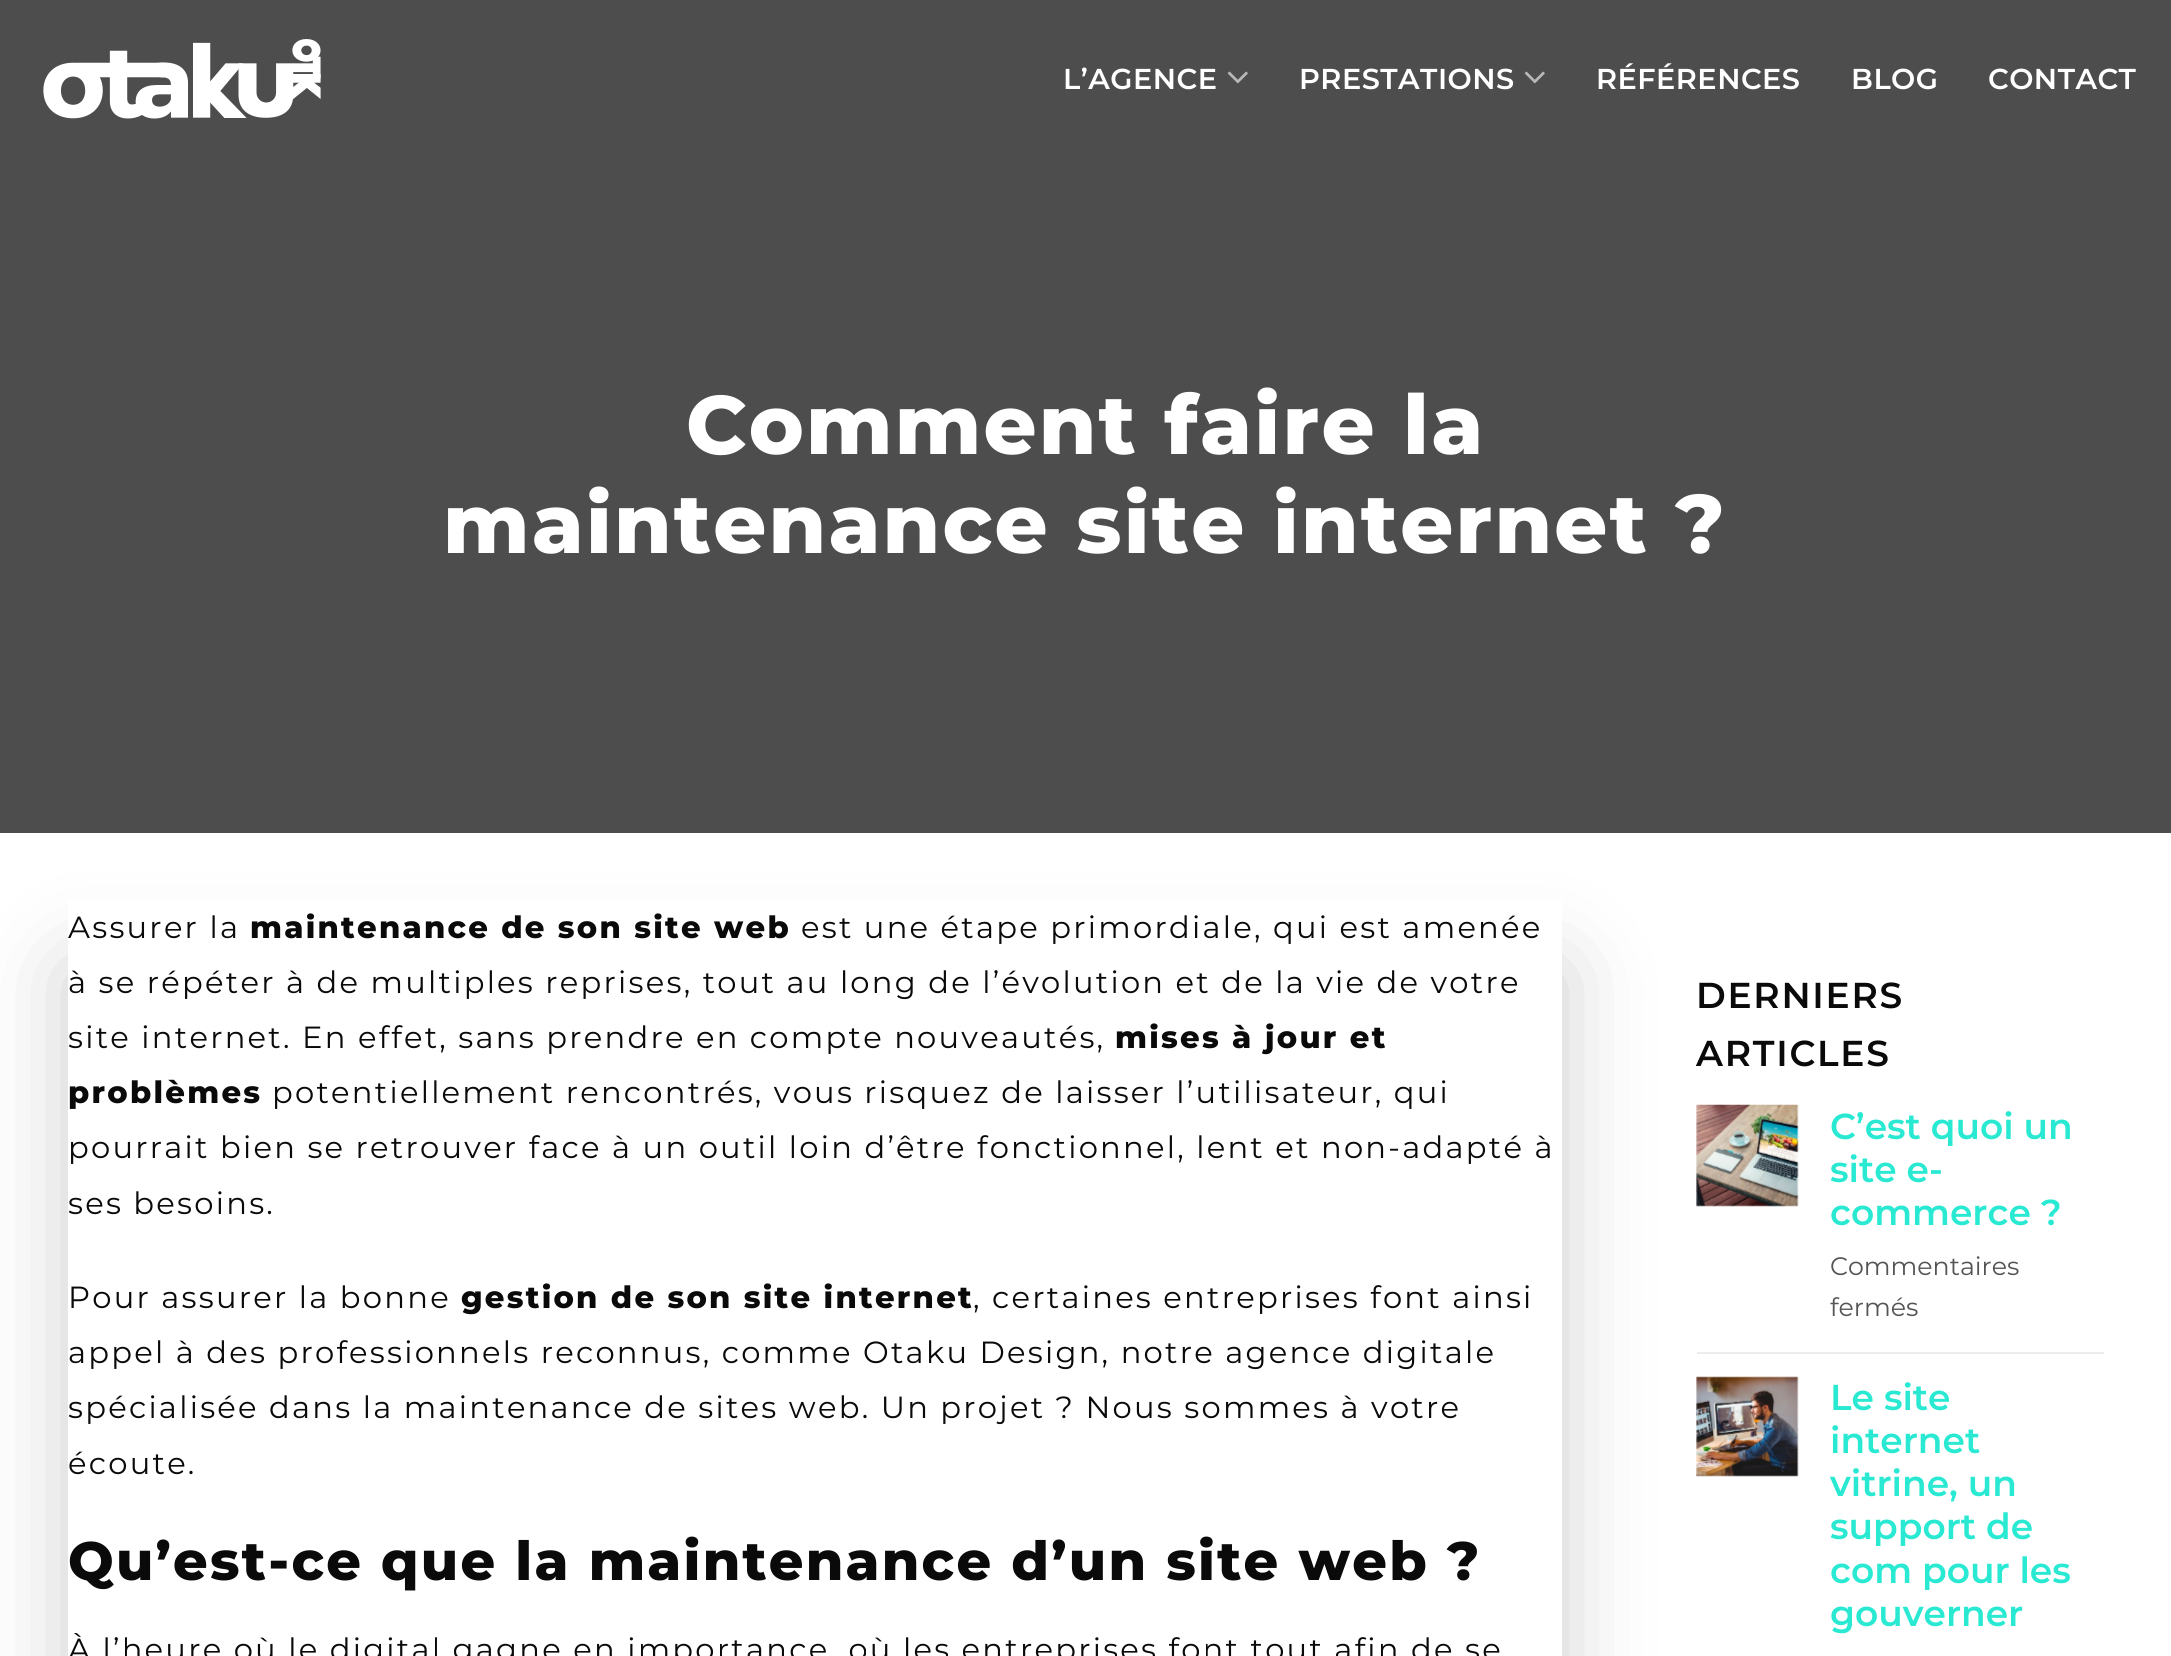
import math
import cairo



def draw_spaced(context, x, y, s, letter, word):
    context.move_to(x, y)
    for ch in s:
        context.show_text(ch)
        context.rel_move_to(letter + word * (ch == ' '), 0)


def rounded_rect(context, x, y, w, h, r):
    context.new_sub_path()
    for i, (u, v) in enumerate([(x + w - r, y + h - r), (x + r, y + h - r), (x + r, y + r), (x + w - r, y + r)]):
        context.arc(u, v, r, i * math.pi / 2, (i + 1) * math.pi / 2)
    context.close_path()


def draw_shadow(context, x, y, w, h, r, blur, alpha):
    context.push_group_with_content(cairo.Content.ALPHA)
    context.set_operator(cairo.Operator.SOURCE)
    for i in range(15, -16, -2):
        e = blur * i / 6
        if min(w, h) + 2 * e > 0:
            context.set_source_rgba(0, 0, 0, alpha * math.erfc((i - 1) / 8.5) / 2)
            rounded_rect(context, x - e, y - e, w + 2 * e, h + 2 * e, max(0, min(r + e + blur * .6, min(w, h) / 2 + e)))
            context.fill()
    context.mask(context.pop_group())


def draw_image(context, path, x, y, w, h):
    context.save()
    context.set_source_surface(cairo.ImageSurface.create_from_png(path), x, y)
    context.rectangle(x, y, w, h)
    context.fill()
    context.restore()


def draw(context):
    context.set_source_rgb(1, 1, 1)
    context.paint()
    context.set_source_rgb(77 / 255, 77 / 255, 77 / 255)
    context.rectangle(0, 0, 2171, 833)
    context.fill()
    draw_image(context, "images/1.png", 43, 39, 278, 80)
    draw_image(context, "images/2.png", 1227, 71, 21, 13)
    draw_image(context, "images/2.png", 1524, 71, 21, 13)
    context.set_source_rgb(0, 0, 0)
    draw_shadow(context, 68, 968, 1494, 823, 0, 45, 0.2)
    context.set_source_rgb(1, 1, 1)
    context.rectangle(68, 900, 1494, 756)
    context.fill()
    draw_image(context, "images/3.png", 1696, 1104, 103, 103)
    context.set_source_rgb(236 / 255, 236 / 255, 236 / 255)
    context.rectangle(1697, 1352, 407, 2)
    context.fill()
    draw_image(context, "images/4.png", 1696, 1376, 103, 101)
    context.select_font_face("Montserrat SemiBold")
    context.set_font_size(28.75)
    context.set_source_rgb(1, 1, 1)
    draw_spaced(context, 1063, 89, "L’AGENCE", 0.5, 0)
    draw_spaced(context, 1299, 89, "PRESTATIONS", 0.5, 0)
    draw_spaced(context, 1596, 89, "RÉFÉRENCES", 0.5, 0)
    draw_spaced(context, 1851, 89, "BLOG", 0.5, 0)
    draw_spaced(context, 1988, 89, "CONTACT", 0.5, 0)
    context.select_font_face("Montserrat ExtraBold")
    context.set_font_size(82.75)
    draw_spaced(context, 686, 454, "Comment faire la", 2.25, 0)
    draw_spaced(context, 443, 553, "maintenance site internet ?", 2.25, 0)
    context.select_font_face("Montserrat")
    context.set_font_size(30.6)
    context.set_source_rgb(10 / 255, 10 / 255, 10 / 255)
    draw_spaced(context, 68, 938, "Assurer la", 2.25, 0)
    context.select_font_face("Montserrat ExtraBold")
    draw_spaced(context, 250, 938, "maintenance de son site web", 2.25, 0)
    context.select_font_face("Montserrat")
    draw_spaced(context, 801, 938, "est une étape primordiale, qui est amenée", 2.25, 0)
    draw_spaced(context, 68, 993, "à se répéter à de multiples reprises, tout au long de l’évolution et de la vie de votre", 2.25, 0)
    draw_spaced(context, 68, 1048, "site internet. En effet, sans prendre en compte nouveautés,", 2.25, 0)
    context.select_font_face("Montserrat ExtraBold")
    draw_spaced(context, 1115, 1048, "mises à jour et", 2.25, 0)
    draw_spaced(context, 68, 1103, "problèmes", 2.25, 0)
    context.select_font_face("Montserrat")
    draw_spaced(context, 272, 1103, "potentiellement rencontrés, vous risquez de laisser l’utilisateur, qui", 2.25, 0)
    draw_spaced(context, 68, 1158, "pourrait bien se retrouver face à un outil loin d’être fonctionnel, lent et non-adapté à", 2.25, 0)
    draw_spaced(context, 68, 1214, "ses besoins.", 2.25, 0)
    draw_spaced(context, 68, 1308, "Pour assurer la bonne", 2.25, 0)
    context.select_font_face("Montserrat ExtraBold")
    draw_spaced(context, 461, 1308, "gestion de son site internet", 2.25, 0)
    context.select_font_face("Montserrat")
    draw_spaced(context, 973, 1308, ", certaines entreprises font ainsi", 2.25, 0)
    draw_spaced(context, 68, 1363, "appel à des professionnels reconnus, comme Otaku Design, notre agence digitale", 2.25, 0)
    draw_spaced(context, 68, 1418, "spécialisée dans la maintenance de sites web. Un projet ? Nous sommes à votre", 2.25, 0)
    draw_spaced(context, 68, 1474, "écoute.", 2.25, 0)
    context.select_font_face("Montserrat ExtraBold")
    context.set_font_size(54)
    draw_spaced(context, 68, 1580, "Qu’est-ce que la maintenance d’un site web ?", 2.25, 0)
    context.select_font_face("Montserrat")
    context.set_font_size(30.6)
    draw_spaced(context, 68, 1660, "À l’heure où le digital gagne en importance, où les entreprises font tout afin de se", 2.25, 0)
    context.select_font_face("Montserrat SemiBold")
    context.set_font_size(36)
    draw_spaced(context, 1696, 1008, "DERNIERS", 1.75, 0)
    draw_spaced(context, 1696, 1066, "ARTICLES", 1.75, 0)
    context.set_source_rgb(41 / 255, 233 / 255, 210 / 255)
    context.move_to(1830, 1139)
    context.show_text("C’est quoi un")
    context.move_to(1830, 1182)
    context.show_text("site e-")
    context.move_to(1830, 1225)
    context.show_text("commerce ?")
    context.select_font_face("Montserrat")
    context.set_font_size(25.25)
    context.set_source_rgb(84 / 255, 84 / 255, 84 / 255)
    context.move_to(1830, 1275)
    context.show_text("Commentaires")
    context.move_to(1830, 1316)
    context.show_text("fermés")
    context.select_font_face("Montserrat SemiBold")
    context.set_font_size(36)
    context.set_source_rgb(41 / 255, 233 / 255, 210 / 255)
    context.move_to(1830, 1410)
    context.show_text("Le site")
    context.move_to(1830, 1453)
    context.show_text("internet")
    context.move_to(1830, 1496)
    context.show_text("vitrine, un")
    context.move_to(1830, 1539)
    context.show_text("support de")
    context.move_to(1830, 1583)
    context.show_text("com pour les")
    context.move_to(1830, 1626)
    context.show_text("gouverner")


surface = cairo.ImageSurface(cairo.Format.RGB24, 2171, 1656)
context = cairo.Context(surface)
options = cairo.FontOptions()
options.set_hint_metrics(cairo.HintMetrics.OFF)
options.set_hint_style(cairo.HintStyle.NONE)
context.set_font_options(options)
context.set_miter_limit(4)
draw(context)
surface.write_to_png("out.png")
